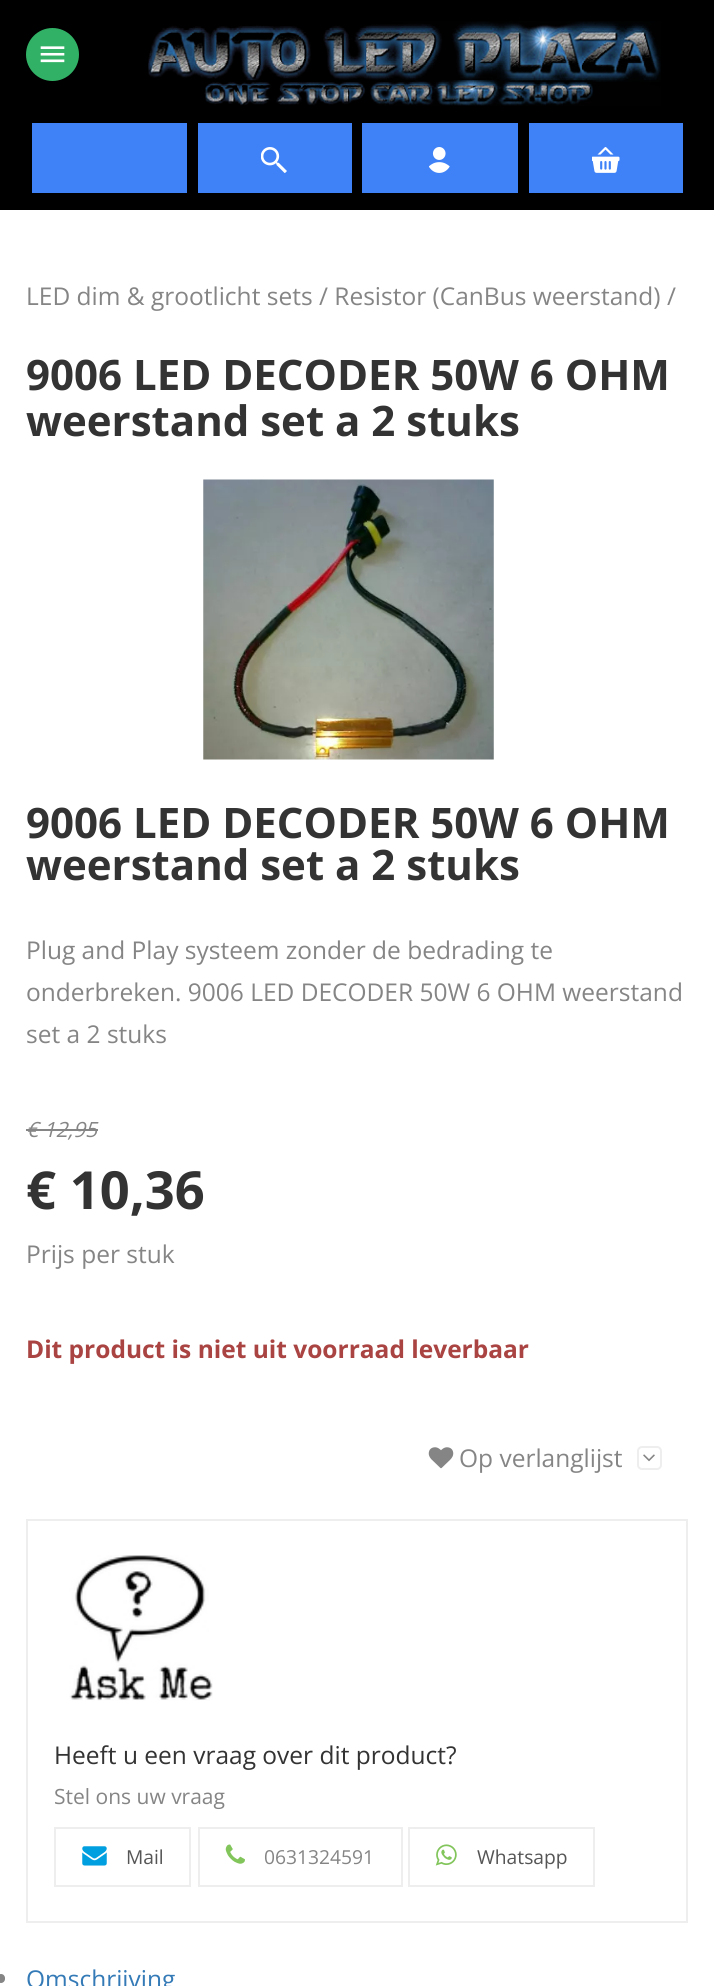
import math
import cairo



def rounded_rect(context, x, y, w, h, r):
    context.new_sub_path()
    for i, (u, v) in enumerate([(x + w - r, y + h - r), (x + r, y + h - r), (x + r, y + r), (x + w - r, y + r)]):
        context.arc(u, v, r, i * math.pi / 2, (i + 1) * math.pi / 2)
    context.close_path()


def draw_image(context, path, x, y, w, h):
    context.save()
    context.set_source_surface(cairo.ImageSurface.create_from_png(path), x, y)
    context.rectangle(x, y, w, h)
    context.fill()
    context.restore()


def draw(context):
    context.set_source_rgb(1, 1, 1)
    context.paint()
    context.set_source_rgb(0, 0, 0)
    context.rectangle(0, 0, 714, 210)
    context.fill()
    context.set_source_rgb(49 / 255, 177 / 255, 101 / 255)
    context.arc(52.5, 54.5, 26.5, 0, 2 * math.pi)
    context.fill()
    draw_image(context, "images/1.png", 40, 46, 25, 17)
    draw_image(context, "images/2.png", 148, 21, 513, 85)
    context.set_source_rgb(63 / 255, 130 / 255, 248 / 255)
    context.rectangle(32, 123, 155, 70)
    context.fill()
    context.rectangle(198, 123, 154, 70)
    context.fill()
    draw_image(context, "images/3.png", 261, 147, 26, 26)
    context.rectangle(362, 123, 156, 70)
    context.fill()
    draw_image(context, "images/4.png", 429, 147, 21, 26)
    context.rectangle(529, 123, 154, 70)
    context.fill()
    draw_image(context, "images/5.png", 592, 147, 28, 26)
    draw_image(context, "images/6.png", 203, 479, 291, 281)
    context.set_source_rgb(133 / 255, 133 / 255, 133 / 255)
    context.rectangle(26, 1129, 72, 2)
    context.fill()
    draw_image(context, "images/7.png", 428, 1447, 26, 22)
    rounded_rect(context, 638, 1447, 23, 22, 4)
    context.set_source_rgb(238 / 255, 238 / 255, 238 / 255)
    context.stroke()
    draw_image(context, "images/8.png", 643, 1454, 12, 8)
    context.rectangle(27, 1520, 660, 402)
    context.stroke()
    draw_image(context, "images/9.png", 69, 1555, 144, 146)
    context.rectangle(55, 1828, 135, 58)
    context.stroke()
    draw_image(context, "images/10.png", 82, 1846, 25, 20)
    context.rectangle(199, 1828, 203, 58)
    context.stroke()
    draw_image(context, "images/11.png", 225, 1844, 20, 20)
    context.rectangle(409, 1828, 185, 58)
    context.stroke()
    draw_image(context, "images/12.png", 435, 1844, 22, 22)
    context.set_source_rgb(133 / 255, 133 / 255, 133 / 255)
    rounded_rect(context, -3, 1974, 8, 9, 4)
    context.fill()
    context.select_font_face("Open Sans")
    context.set_font_size(24.5)
    context.move_to(26, 305)
    context.show_text("LED dim & grootlicht sets / Resistor (CanBus weerstand) /")
    context.select_font_face("Open Sans", cairo.FontSlant.NORMAL, cairo.FontWeight.BOLD)
    context.set_font_size(42)
    context.set_source_rgb(51 / 255, 51 / 255, 51 / 255)
    context.move_to(26, 390)
    context.show_text("9006 LED DECODER 50W 6 OHM")
    context.move_to(26, 436)
    context.show_text("weerstand set a 2 stuks")
    context.move_to(26, 838)
    context.show_text("9006 LED DECODER 50W 6 OHM")
    context.move_to(26, 880)
    context.show_text("weerstand set a 2 stuks")
    context.select_font_face("Open Sans")
    context.set_font_size(24.5)
    context.set_source_rgb(133 / 255, 133 / 255, 133 / 255)
    context.move_to(26, 959)
    context.show_text("Plug and Play systeem zonder de bedrading te")
    context.move_to(26, 1001)
    context.show_text("onderbreken. 9006 LED DECODER 50W 6 OHM weerstand")
    context.move_to(26, 1043)
    context.show_text("set a 2 stuks")
    context.select_font_face("Open Sans", cairo.FontSlant.ITALIC)
    context.set_font_size(21)
    context.move_to(26, 1137)
    context.show_text("€ 12,95")
    context.select_font_face("Open Sans", cairo.FontSlant.NORMAL, cairo.FontWeight.BOLD)
    context.set_font_size(52.5)
    context.set_source_rgb(51 / 255, 51 / 255, 51 / 255)
    context.move_to(26, 1209)
    context.show_text("€ 10,36")
    context.select_font_face("Open Sans")
    context.set_font_size(24.5)
    context.set_source_rgb(133 / 255, 133 / 255, 133 / 255)
    context.move_to(26, 1263)
    context.show_text("Prijs per stuk")
    context.select_font_face("Open Sans", cairo.FontSlant.NORMAL, cairo.FontWeight.BOLD)
    context.set_source_rgb(169 / 255, 68 / 255, 66 / 255)
    context.move_to(26, 1358)
    context.show_text("Dit product is niet uit voorraad leverbaar")
    context.select_font_face("Open Sans")
    context.set_source_rgb(133 / 255, 133 / 255, 133 / 255)
    context.move_to(459, 1467)
    context.show_text("Op verlanglijst")
    context.set_source_rgb(51 / 255, 51 / 255, 51 / 255)
    context.move_to(54, 1764)
    context.show_text("Heeft u een vraag over dit product?")
    context.set_font_size(21)
    context.set_source_rgb(133 / 255, 133 / 255, 133 / 255)
    context.move_to(54, 1804)
    context.show_text("Stel ons uw vraag")
    context.set_font_size(19.25)
    context.set_source_rgb(85 / 255, 85 / 255, 85 / 255)
    context.move_to(126, 1864)
    context.show_text("Mail")
    context.set_source_rgb(133 / 255, 133 / 255, 133 / 255)
    context.move_to(264, 1864)
    context.show_text("0631324591")
    context.set_source_rgb(85 / 255, 85 / 255, 85 / 255)
    context.move_to(477, 1864)
    context.show_text("Whatsapp")
    context.set_font_size(24.5)
    context.set_source_rgb(51 / 255, 122 / 255, 183 / 255)
    context.move_to(26, 1988)
    context.show_text("Omschrijving")


surface = cairo.ImageSurface(cairo.Format.RGB24, 714, 1986)
context = cairo.Context(surface)
options = cairo.FontOptions()
options.set_hint_metrics(cairo.HintMetrics.OFF)
options.set_hint_style(cairo.HintStyle.NONE)
context.set_font_options(options)
context.set_miter_limit(4)
draw(context)
surface.write_to_png("out.png")
